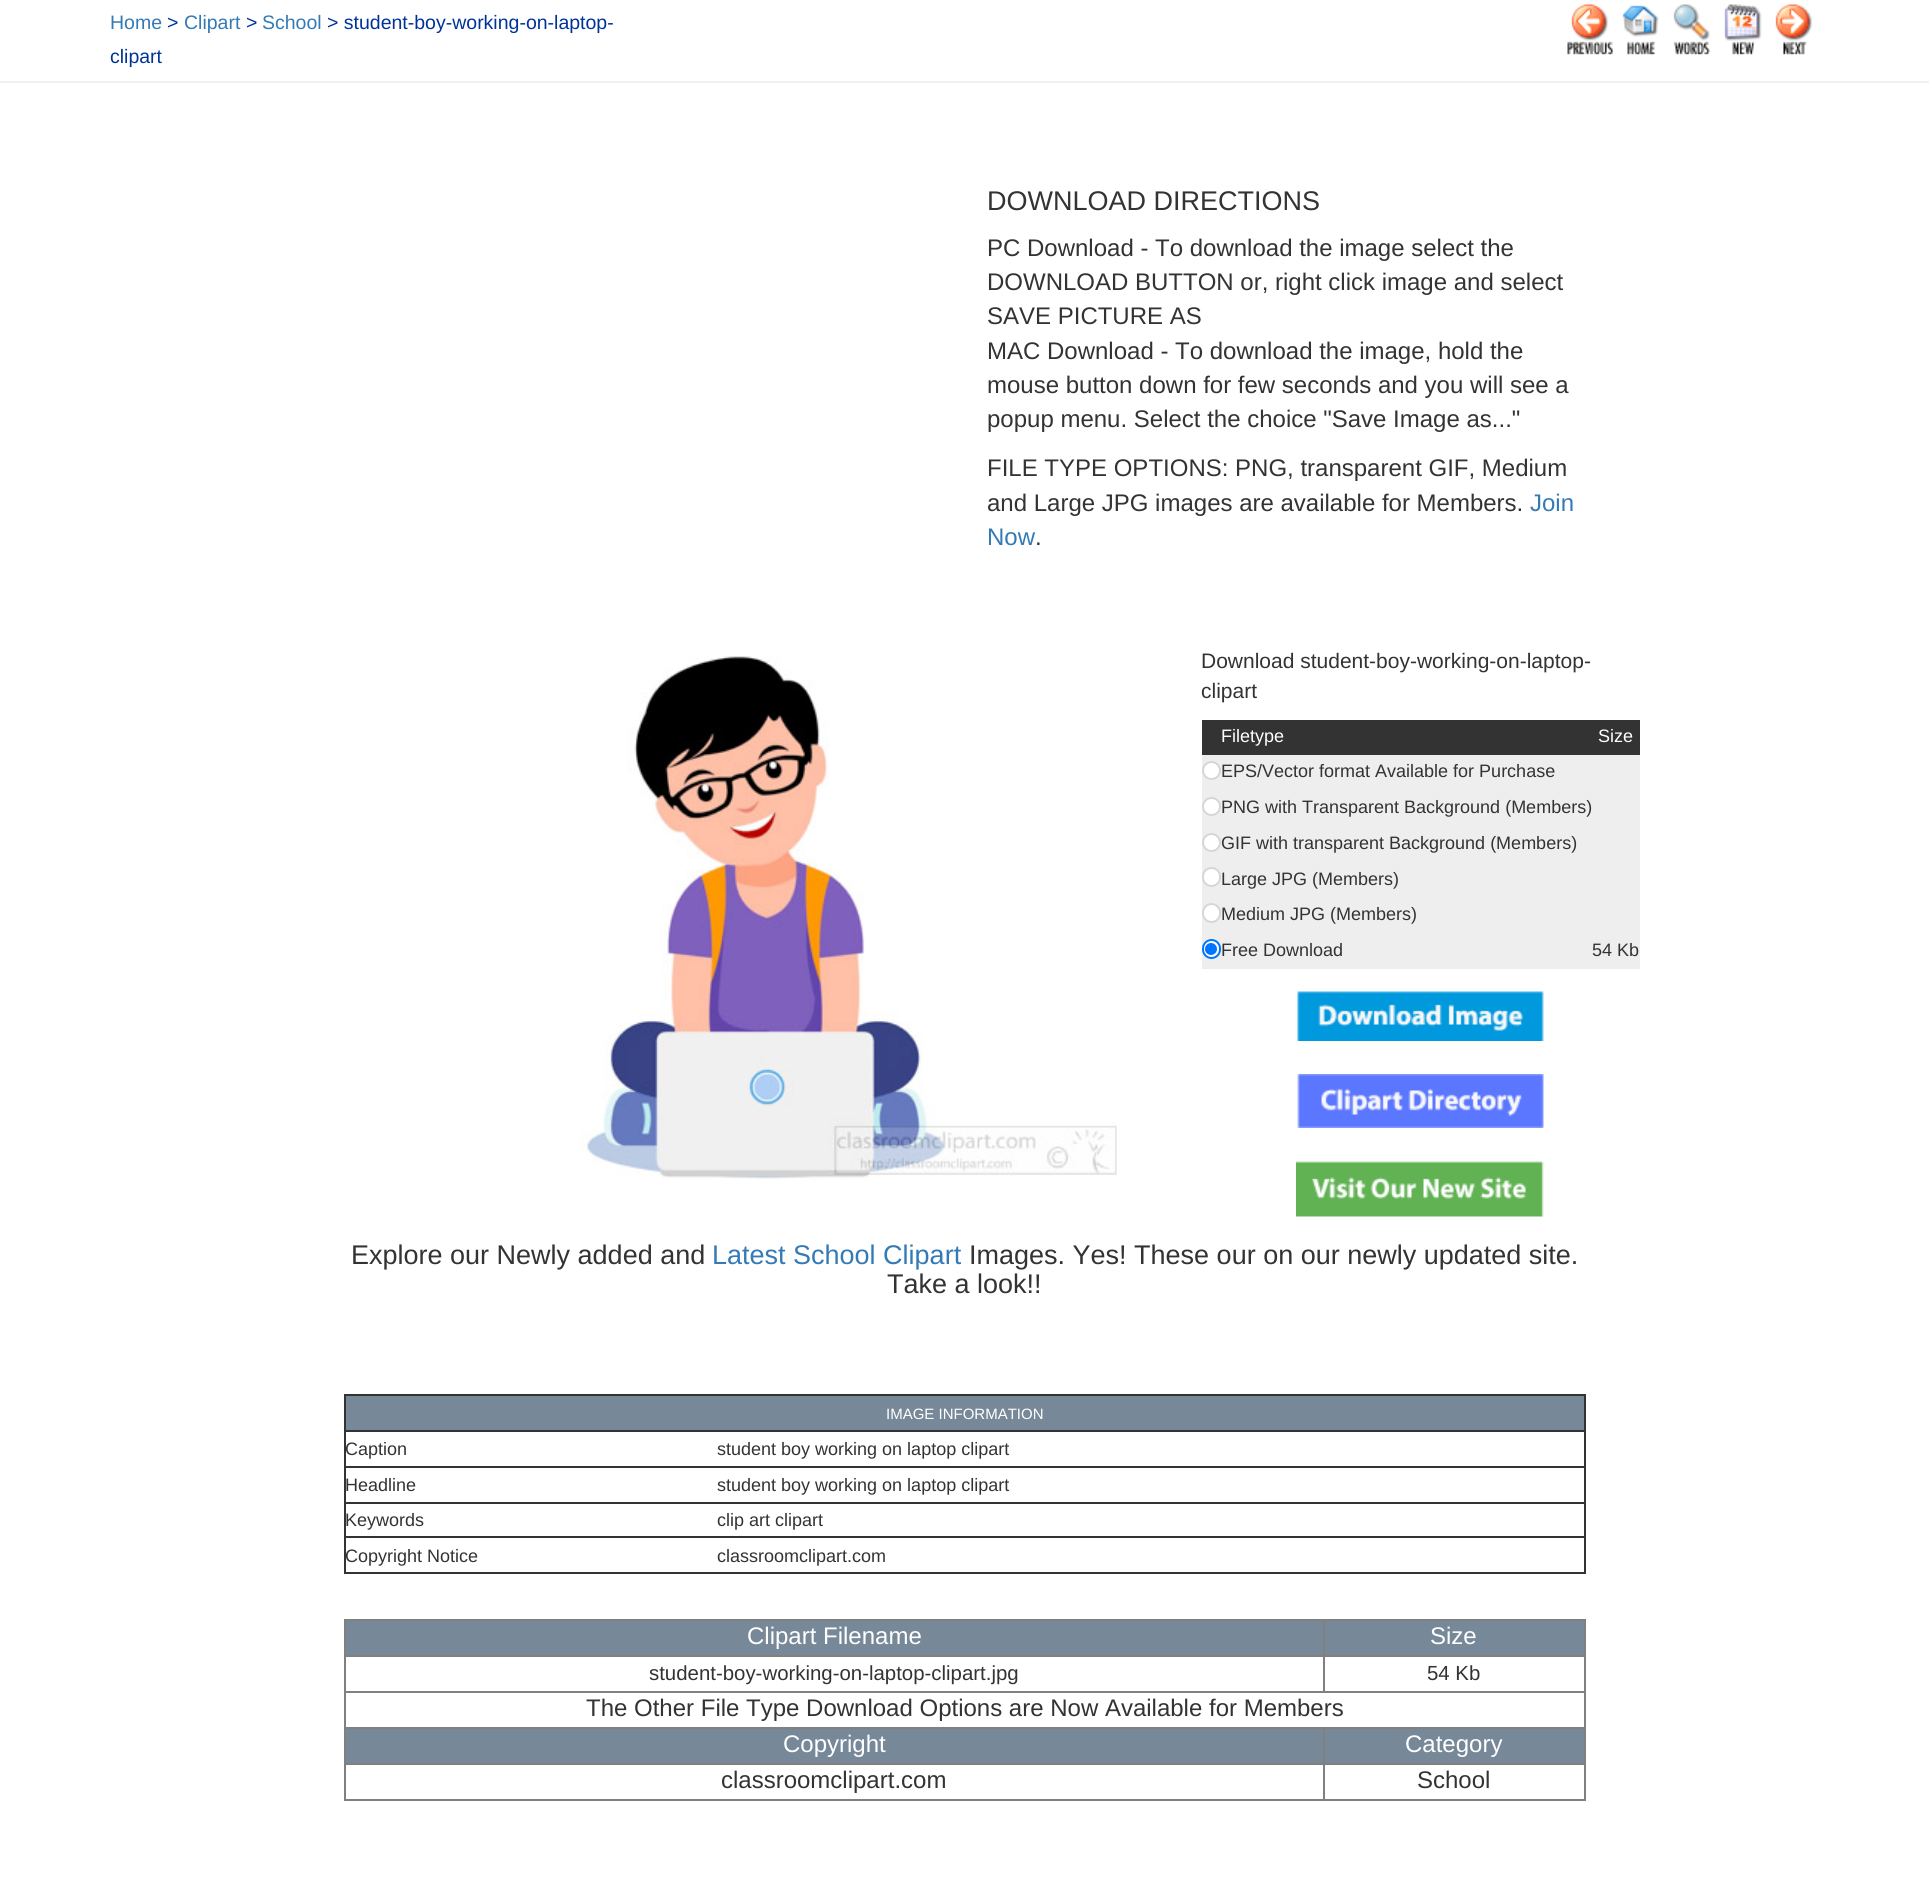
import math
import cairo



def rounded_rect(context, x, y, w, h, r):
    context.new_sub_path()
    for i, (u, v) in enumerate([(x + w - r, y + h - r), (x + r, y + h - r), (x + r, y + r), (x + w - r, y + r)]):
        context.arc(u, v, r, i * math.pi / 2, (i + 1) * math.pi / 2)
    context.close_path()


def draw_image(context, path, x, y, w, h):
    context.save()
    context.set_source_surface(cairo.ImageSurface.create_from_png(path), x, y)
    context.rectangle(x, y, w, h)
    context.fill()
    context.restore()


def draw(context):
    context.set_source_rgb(1, 1, 1)
    context.paint()
    context.set_source_rgb(241 / 255, 241 / 255, 241 / 255)
    context.rectangle(0, 81, 1929, 2)
    context.fill()
    draw_image(context, "images/1.png", 1567, 4, 46, 51)
    draw_image(context, "images/2.png", 1622, 5, 37, 50)
    draw_image(context, "images/3.png", 1673, 4, 38, 51)
    draw_image(context, "images/4.png", 1724, 4, 38, 51)
    draw_image(context, "images/5.png", 1775, 4, 38, 51)
    draw_image(context, "images/6.png", 580, 656, 537, 524)
    context.set_source_rgb(51 / 255, 51 / 255, 51 / 255)
    context.rectangle(1202, 720, 438, 35)
    context.fill()
    context.set_source_rgb(238 / 255, 238 / 255, 238 / 255)
    context.rectangle(1202, 755, 438, 214)
    context.fill()
    context.set_source_rgb(1, 1, 1)
    context.arc(1211.5, 770.5, 9.5, 0, 2 * math.pi)
    context.fill()
    context.arc(1211.5, 770.5, 8.5, 0, 2 * math.pi)
    context.set_source_rgba(118 / 255, 118 / 255, 118 / 255, 0.3)
    context.stroke()
    context.set_source_rgb(1, 1, 1)
    context.arc(1211.5, 806.5, 9.5, 0, 2 * math.pi)
    context.fill()
    context.arc(1211.5, 806.5, 8.5, 0, 2 * math.pi)
    context.set_source_rgba(118 / 255, 118 / 255, 118 / 255, 0.3)
    context.stroke()
    context.set_source_rgb(1, 1, 1)
    context.arc(1211.5, 842.5, 9.5, 0, 2 * math.pi)
    context.fill()
    context.arc(1211.5, 842.5, 8.5, 0, 2 * math.pi)
    context.set_source_rgba(118 / 255, 118 / 255, 118 / 255, 0.3)
    context.stroke()
    context.set_source_rgb(1, 1, 1)
    rounded_rect(context, 1202, 867, 19, 20, 9.5)
    context.fill()
    rounded_rect(context, 1203, 868, 17, 18, 8.5)
    context.set_source_rgba(118 / 255, 118 / 255, 118 / 255, 0.3)
    context.stroke()
    context.set_source_rgb(1, 1, 1)
    rounded_rect(context, 1202, 903, 19, 20, 9.5)
    context.fill()
    rounded_rect(context, 1203, 904, 17, 18, 8.5)
    context.set_source_rgba(118 / 255, 118 / 255, 118 / 255, 0.3)
    context.stroke()
    context.set_source_rgb(1, 1, 1)
    rounded_rect(context, 1203, 940, 17, 18, 8.5)
    context.fill_preserve()
    context.set_source_rgb(0, 117 / 255, 1)
    context.stroke()
    context.arc(1211, 949, 6, 0, 2 * math.pi)
    context.fill()
    draw_image(context, "images/7.png", 1297, 991, 247, 50)
    draw_image(context, "images/8.png", 1297, 1074, 247, 54)
    draw_image(context, "images/9.png", 1296, 1161, 248, 56)
    context.set_source_rgb(51 / 255, 51 / 255, 51 / 255)
    context.rectangle(344, 1394, 1242, 2)
    context.fill()
    context.rectangle(1584, 1394, 2, 180)
    context.fill()
    context.rectangle(344, 1572, 1242, 2)
    context.fill()
    context.rectangle(344, 1394, 2, 180)
    context.fill()
    context.set_source_rgb(119 / 255, 136 / 255, 153 / 255)
    context.rectangle(346, 1396, 1238, 34)
    context.fill()
    context.set_source_rgb(51 / 255, 51 / 255, 51 / 255)
    context.rectangle(344, 1430, 1242, 2)
    context.fill()
    context.rectangle(344, 1466, 1242, 2)
    context.fill()
    context.rectangle(344, 1502, 1242, 2)
    context.fill()
    context.rectangle(344, 1536, 1242, 2)
    context.fill()
    context.set_source_rgb(128 / 255, 128 / 255, 128 / 255)
    context.rectangle(344, 1619, 1242, 2)
    context.fill()
    context.rectangle(1584, 1619, 2, 181)
    context.fill()
    context.rectangle(344, 1799, 1242, 2)
    context.fill()
    context.rectangle(344, 1619, 2, 181)
    context.fill()
    context.set_source_rgb(119 / 255, 136 / 255, 153 / 255)
    context.rectangle(346, 1621, 1238, 34)
    context.fill()
    context.set_source_rgb(128 / 255, 128 / 255, 128 / 255)
    context.rectangle(1323, 1655, 263, 2)
    context.fill()
    context.rectangle(344, 1691, 1242, 2)
    context.fill()
    context.rectangle(1323, 1655, 2, 37)
    context.fill()
    context.rectangle(344, 1655, 981, 2)
    context.fill()
    context.rectangle(1323, 1619, 2, 37)
    context.fill()
    context.set_source_rgb(119 / 255, 136 / 255, 153 / 255)
    context.rectangle(346, 1729, 1238, 34)
    context.fill()
    context.set_source_rgb(128 / 255, 128 / 255, 128 / 255)
    context.rectangle(1323, 1727, 263, 2)
    context.fill()
    context.rectangle(1323, 1763, 263, 2)
    context.fill()
    context.rectangle(1323, 1763, 2, 37)
    context.fill()
    context.rectangle(344, 1763, 981, 2)
    context.fill()
    context.rectangle(1323, 1727, 2, 37)
    context.fill()
    context.rectangle(344, 1727, 981, 2)
    context.fill()
    context.select_font_face("Liberation Sans")
    context.set_font_size(19.5)
    context.set_source_rgb(51 / 255, 122 / 255, 183 / 255)
    context.move_to(110, 29)
    context.show_text("Home")
    context.set_source_rgb(0, 51 / 255, 153 / 255)
    context.move_to(167, 29)
    context.show_text(">")
    context.set_source_rgb(51 / 255, 122 / 255, 183 / 255)
    context.move_to(184, 29)
    context.show_text("Clipart")
    context.set_source_rgb(0, 51 / 255, 153 / 255)
    context.move_to(246, 29)
    context.show_text(">")
    context.set_source_rgb(51 / 255, 122 / 255, 183 / 255)
    context.move_to(262, 29)
    context.show_text("School")
    context.set_source_rgb(0, 51 / 255, 153 / 255)
    context.move_to(327, 29)
    context.show_text("> student-boy-working-on-laptop-")
    context.move_to(110, 63)
    context.show_text("clipart")
    context.set_font_size(27)
    context.set_source_rgb(51 / 255, 51 / 255, 51 / 255)
    context.move_to(987, 210)
    context.show_text("DOWNLOAD DIRECTIONS")
    context.set_font_size(24)
    context.move_to(987, 256)
    context.show_text("PC Download - To download the image select the")
    context.move_to(987, 290)
    context.show_text("DOWNLOAD BUTTON or, right click image and select")
    context.move_to(987, 324)
    context.show_text("SAVE PICTURE AS")
    context.move_to(987, 359)
    context.show_text("MAC Download - To download the image, hold the")
    context.move_to(987, 393)
    context.show_text("mouse button down for few seconds and you will see a")
    context.move_to(987, 427)
    context.show_text("popup menu. Select the choice \"Save Image as...\"")
    context.move_to(987, 476)
    context.show_text("FILE TYPE OPTIONS: PNG, transparent GIF, Medium")
    context.move_to(987, 511)
    context.show_text("and Large JPG images are available for Members.")
    context.set_source_rgb(51 / 255, 122 / 255, 183 / 255)
    context.move_to(1530, 511)
    context.show_text("Join")
    context.move_to(987, 545)
    context.show_text("Now")
    context.set_source_rgb(51 / 255, 51 / 255, 51 / 255)
    context.move_to(1035, 545)
    context.show_text(".")
    context.set_font_size(21)
    context.move_to(1201, 668)
    context.show_text("Download student-boy-working-on-laptop-")
    context.move_to(1201, 698)
    context.show_text("clipart")
    context.set_font_size(18)
    context.set_source_rgb(1, 1, 1)
    context.move_to(1221, 742)
    context.show_text("Filetype")
    context.move_to(1598, 742)
    context.show_text("Size")
    context.set_source_rgb(51 / 255, 51 / 255, 51 / 255)
    context.move_to(1221, 777)
    context.show_text("EPS/Vector format Available for Purchase")
    context.move_to(1221, 813)
    context.show_text("PNG with Transparent Background (Members)")
    context.move_to(1221, 849)
    context.show_text("GIF with transparent Background (Members)")
    context.move_to(1221, 885)
    context.show_text("Large JPG (Members)")
    context.move_to(1221, 920)
    context.show_text("Medium JPG (Members)")
    context.move_to(1221, 956)
    context.show_text("Free Download")
    context.move_to(1592, 956)
    context.show_text("54 Kb")
    context.set_font_size(27)
    context.move_to(351, 1264)
    context.show_text("Explore our Newly added and")
    context.set_source_rgb(51 / 255, 122 / 255, 183 / 255)
    context.move_to(712, 1264)
    context.show_text("Latest School Clipart")
    context.set_source_rgb(51 / 255, 51 / 255, 51 / 255)
    context.move_to(969, 1264)
    context.show_text("Images. Yes! These our on our newly updated site.")
    context.move_to(887, 1293)
    context.show_text("Take a look!!")
    context.set_font_size(15)
    context.set_source_rgb(1, 1, 1)
    context.move_to(886, 1419)
    context.show_text("IMAGE INFORMATION")
    context.set_font_size(18)
    context.set_source_rgb(51 / 255, 51 / 255, 51 / 255)
    context.move_to(345, 1455)
    context.show_text("Caption")
    context.move_to(717, 1455)
    context.show_text("student boy working on laptop clipart")
    context.move_to(345, 1491)
    context.show_text("Headline")
    context.move_to(717, 1491)
    context.show_text("student boy working on laptop clipart")
    context.move_to(345, 1526)
    context.show_text("Keywords")
    context.move_to(717, 1526)
    context.show_text("clip art clipart")
    context.move_to(345, 1562)
    context.show_text("Copyright Notice")
    context.move_to(717, 1562)
    context.show_text("classroomclipart.com")
    context.set_font_size(24)
    context.set_source_rgb(1, 1, 1)
    context.move_to(747, 1644)
    context.show_text("Clipart Filename")
    context.move_to(1430, 1644)
    context.show_text("Size")
    context.set_font_size(20.4)
    context.set_source_rgb(51 / 255, 51 / 255, 51 / 255)
    context.move_to(649, 1680)
    context.show_text("student-boy-working-on-laptop-clipart.jpg")
    context.move_to(1427, 1680)
    context.show_text("54 Kb")
    context.set_font_size(24)
    context.move_to(586, 1716)
    context.show_text("The Other File Type Download Options are Now Available for Members")
    context.set_source_rgb(1, 1, 1)
    context.move_to(783, 1752)
    context.show_text("Copyright")
    context.move_to(1405, 1752)
    context.show_text("Category")
    context.set_source_rgb(51 / 255, 51 / 255, 51 / 255)
    context.move_to(721, 1788)
    context.show_text("classroomclipart.com")
    context.move_to(1417, 1788)
    context.show_text("School")


surface = cairo.ImageSurface(cairo.Format.RGB24, 1929, 1888)
context = cairo.Context(surface)
options = cairo.FontOptions()
options.set_hint_metrics(cairo.HintMetrics.OFF)
options.set_hint_style(cairo.HintStyle.NONE)
context.set_font_options(options)
context.set_miter_limit(4)
draw(context)
surface.write_to_png("out.png")
